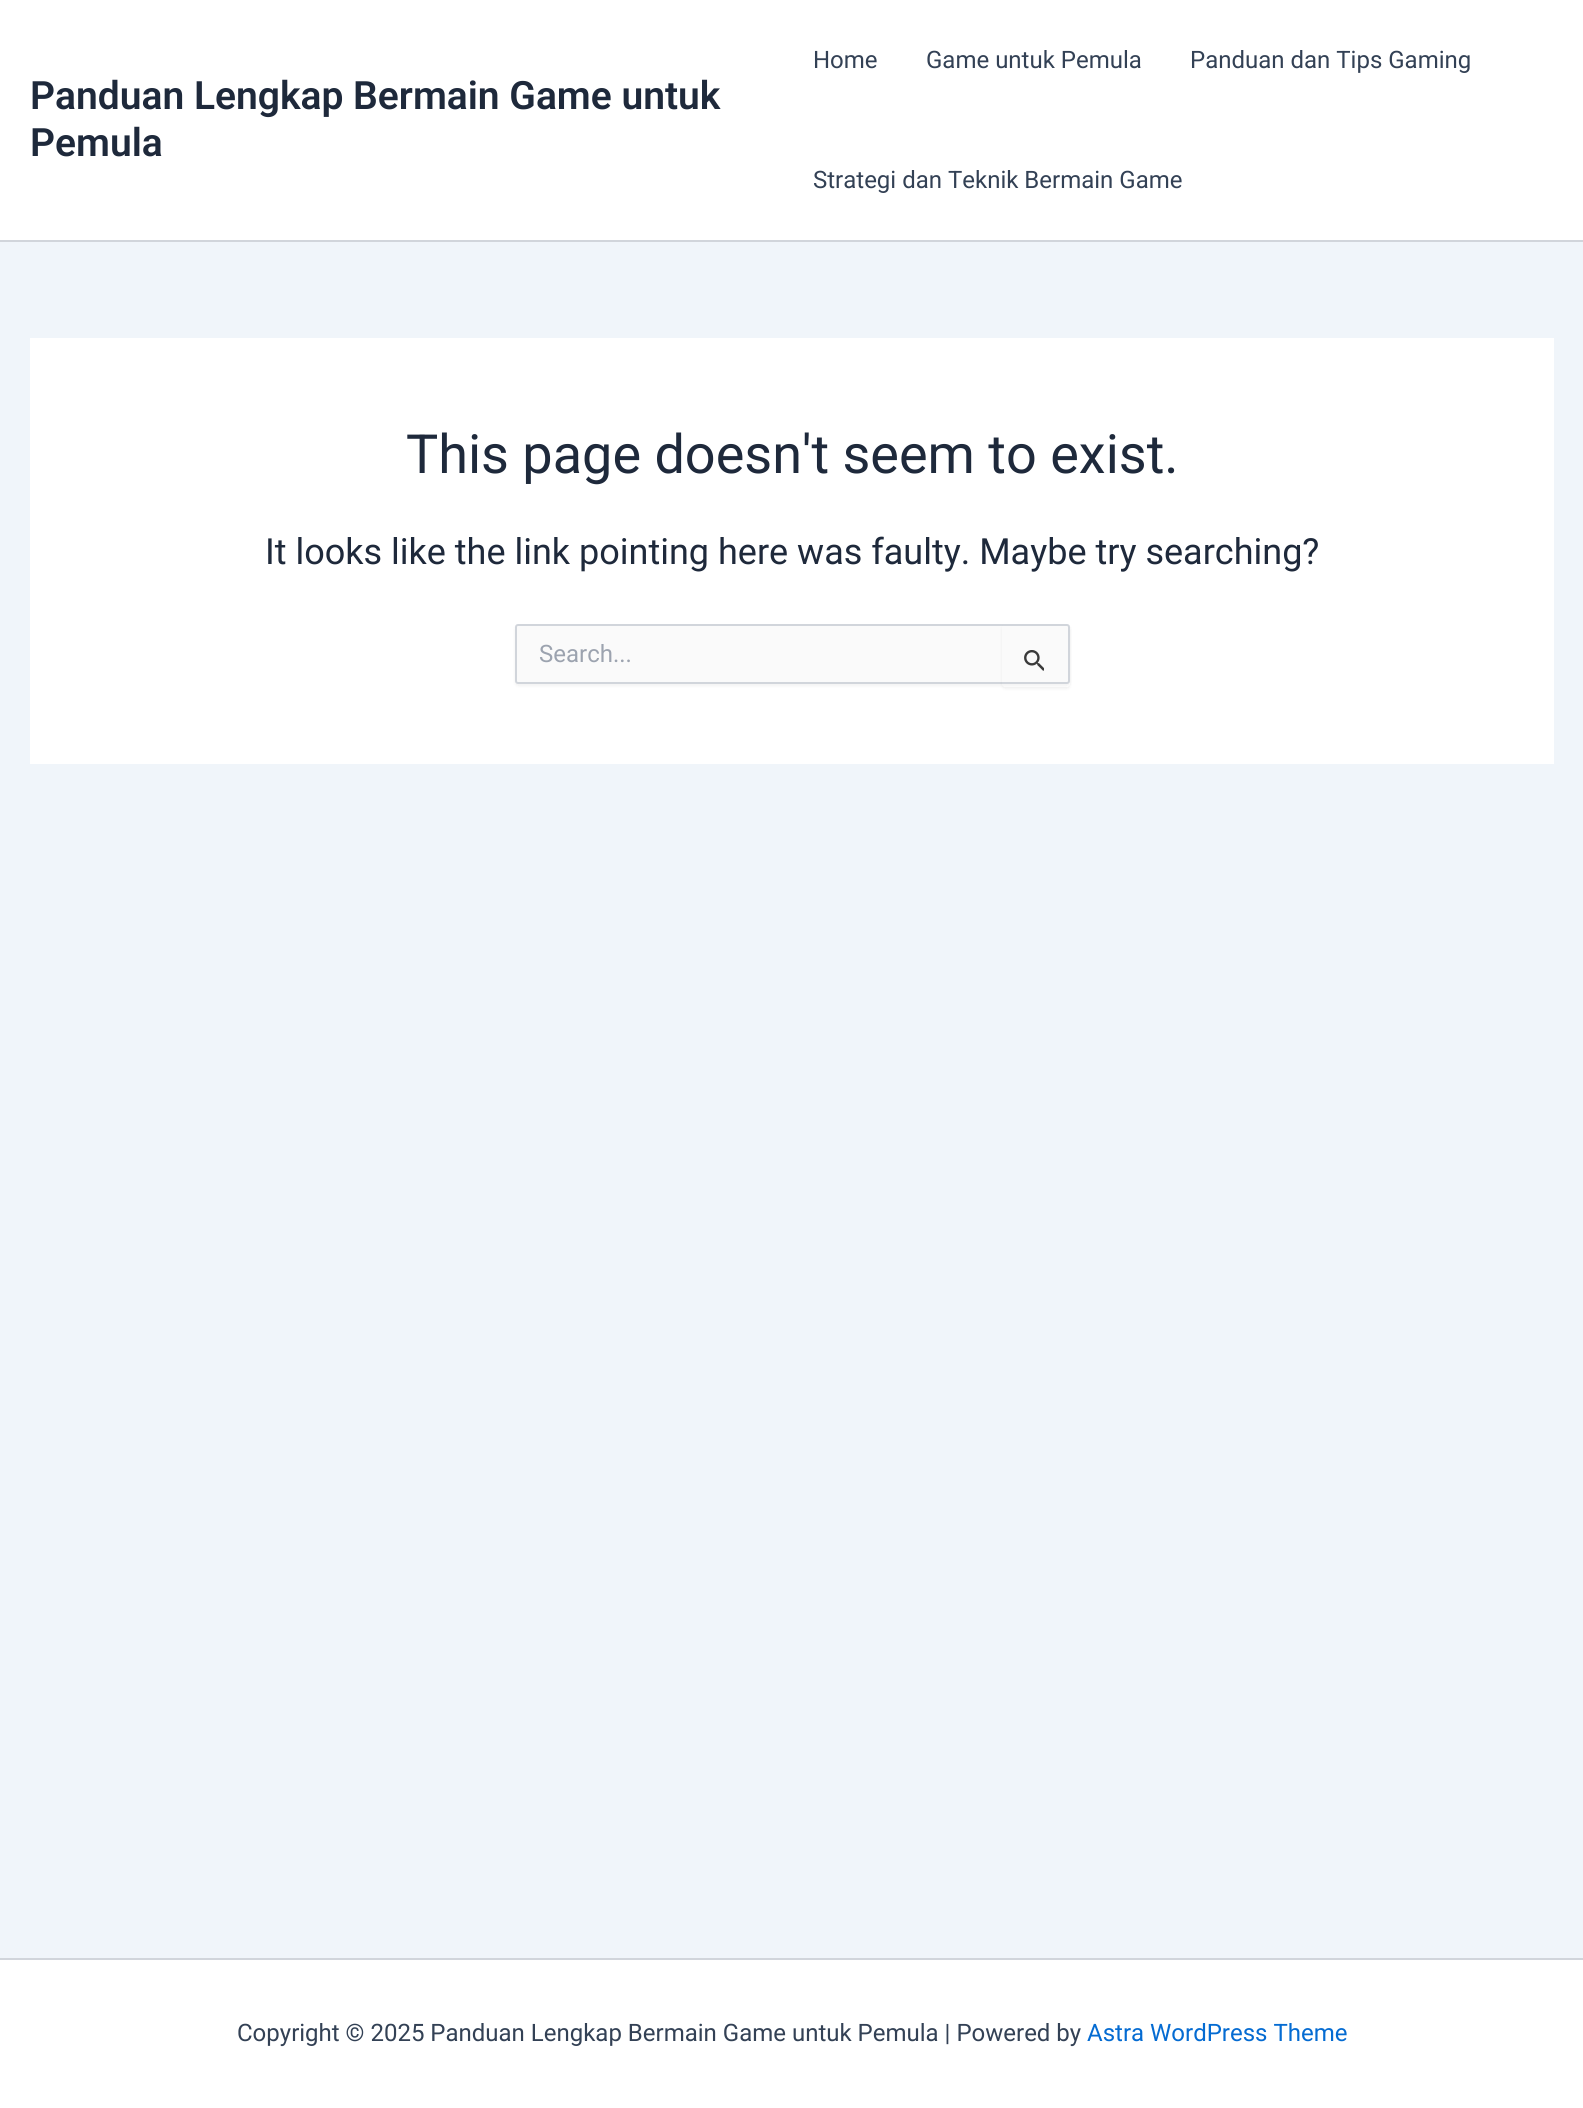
import math
import cairo



def rounded_rect(context, x, y, w, h, r):
    context.new_sub_path()
    for i, (u, v) in enumerate([(x + w - r, y + h - r), (x + r, y + h - r), (x + r, y + r), (x + w - r, y + r)]):
        context.arc(u, v, r, i * math.pi / 2, (i + 1) * math.pi / 2)
    context.close_path()


def draw_shadow(context, x, y, w, h, r, blur, alpha):
    context.push_group_with_content(cairo.Content.ALPHA)
    context.set_operator(cairo.Operator.SOURCE)
    for i in range(15, -16, -2):
        e = blur * i / 6
        if min(w, h) + 2 * e > 0:
            context.set_source_rgba(0, 0, 0, alpha * math.erfc((i - 1) / 8.5) / 2)
            rounded_rect(context, x - e, y - e, w + 2 * e, h + 2 * e, max(0, min(r + e + blur * .6, min(w, h) / 2 + e)))
            context.fill()
    context.mask(context.pop_group())


def draw_image(context, path, x, y, w, h):
    context.save()
    context.set_source_surface(cairo.ImageSurface.create_from_png(path), x, y)
    context.rectangle(x, y, w, h)
    context.fill()
    context.restore()


def draw(context):
    context.set_source_rgb(240 / 255, 245 / 255, 250 / 255)
    context.paint()
    context.set_source_rgb(1, 1, 1)
    context.rectangle(0, 0, 1583, 240)
    context.fill()
    context.set_source_rgb(209 / 255, 213 / 255, 219 / 255)
    context.rectangle(0, 240, 1583, 2)
    context.fill()
    context.set_source_rgb(1, 1, 1)
    context.rectangle(30, 338, 1524, 426)
    context.fill()
    context.set_source_rgb(0, 0, 0)
    draw_shadow(context, 515, 626, 555, 60, 3, 1.5, 0.05)
    context.set_source_rgb(250 / 255, 250 / 255, 250 / 255)
    rounded_rect(context, 516, 625, 553, 58, 2)
    context.fill_preserve()
    context.set_source_rgb(209 / 255, 213 / 255, 219 / 255)
    context.stroke()
    draw_image(context, "images/1.png", 1024, 650, 20, 21)
    context.save()
    context.set_fill_rule(cairo.FillRule.EVEN_ODD)
    context.new_path()
    context.move_to(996, 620)
    context.line_to(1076, 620)
    context.line_to(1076, 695)
    context.line_to(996, 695)
    context.close_path()
    context.move_to(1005, 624)
    context.line_to(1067, 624)
    context.curve_to(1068.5, 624, 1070, 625.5, 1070, 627)
    context.line_to(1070, 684)
    context.curve_to(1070, 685.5, 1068.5, 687, 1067, 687)
    context.line_to(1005, 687)
    context.curve_to(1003.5, 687, 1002, 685.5, 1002, 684)
    context.line_to(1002, 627)
    context.curve_to(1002, 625.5, 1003.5, 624, 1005, 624)
    context.close_path()
    context.clip()
    context.set_source_rgb(0, 0, 0)
    draw_shadow(context, 1002, 626, 68, 63, 3, 1.5, 0.05)
    context.restore()
    context.set_source_rgb(1, 1, 1)
    context.rectangle(0, 1960, 1583, 148)
    context.fill()
    context.set_source_rgb(209 / 255, 213 / 255, 219 / 255)
    context.rectangle(0, 1958, 1583, 2)
    context.fill()
    context.select_font_face("Roboto SemiBold")
    context.set_font_size(39)
    context.set_source_rgb(30 / 255, 41 / 255, 59 / 255)
    context.move_to(30, 109)
    context.show_text("Panduan Lengkap Bermain Game untuk")
    context.move_to(30, 156)
    context.show_text("Pemula")
    context.select_font_face("Roboto")
    context.set_font_size(24)
    context.set_source_rgb(51 / 255, 65 / 255, 85 / 255)
    context.move_to(813, 68)
    context.show_text("Home")
    context.move_to(926, 68)
    context.show_text("Game untuk Pemula")
    context.move_to(1190, 68)
    context.show_text("Panduan dan Tips Gaming")
    context.move_to(813, 188)
    context.show_text("Strategi dan Teknik Bermain Game")
    context.set_font_size(54)
    context.set_source_rgb(30 / 255, 41 / 255, 59 / 255)
    context.move_to(406, 473)
    context.show_text("This page doesn't seem to exist.")
    context.set_font_size(36)
    context.move_to(265, 564)
    context.show_text("It looks like the link pointing here was faulty. Maybe try searching?")
    context.set_font_size(24)
    context.set_source_rgb(156 / 255, 163 / 255, 175 / 255)
    context.move_to(539, 662)
    context.show_text("Search...")
    context.set_source_rgb(51 / 255, 65 / 255, 85 / 255)
    context.move_to(237, 2041)
    context.show_text("Copyright © 2025 Panduan Lengkap Bermain Game untuk Pemula | Powered by")
    context.set_source_rgb(4 / 255, 107 / 255, 210 / 255)
    context.move_to(1087, 2041)
    context.show_text("Astra WordPress Theme")


surface = cairo.ImageSurface(cairo.Format.RGB24, 1583, 2108)
context = cairo.Context(surface)
options = cairo.FontOptions()
options.set_hint_metrics(cairo.HintMetrics.OFF)
options.set_hint_style(cairo.HintStyle.NONE)
context.set_font_options(options)
context.set_miter_limit(4)
draw(context)
surface.write_to_png("out.png")
